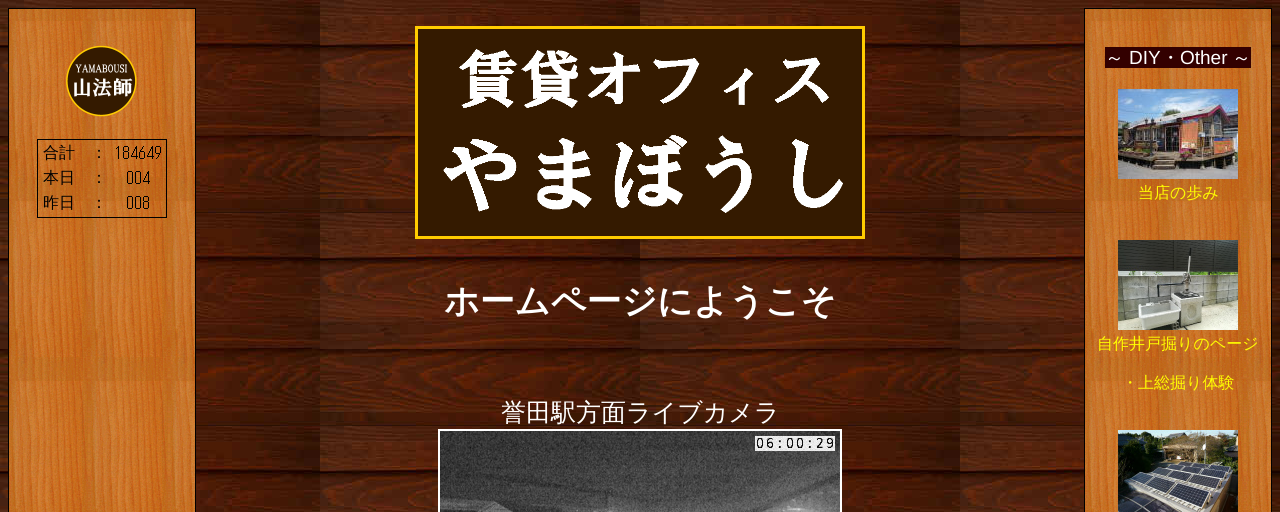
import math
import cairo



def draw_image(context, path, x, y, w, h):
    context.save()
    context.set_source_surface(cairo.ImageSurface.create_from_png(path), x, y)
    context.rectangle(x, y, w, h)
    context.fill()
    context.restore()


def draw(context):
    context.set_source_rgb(1, 1, 1)
    context.paint()
    draw_image(context, "images/1.png", 0, 0, 1280, 512)
    draw_image(context, "images/2.png", 9, 9, 186, 503)
    context.rectangle(8.5, 8.5, 187, 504)
    context.set_source_rgb(0, 0, 0)
    context.set_line_width(1)
    context.stroke()
    draw_image(context, "images/3.png", 66, 45, 71, 72)
    context.rectangle(37.5, 139.5, 129, 78)
    context.stroke()
    draw_image(context, "images/4.png", 116, 146, 45, 13)
    draw_image(context, "images/5.png", 127, 171, 23, 13)
    draw_image(context, "images/6.png", 127, 196, 22, 13)
    draw_image(context, "images/2.png", 1085, 9, 186, 503)
    context.rectangle(1084.5, 8.5, 187, 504)
    context.stroke()
    context.set_source_rgb(51 / 255, 0, 0)
    context.rectangle(1105, 47, 146, 21)
    context.fill()
    draw_image(context, "images/7.png", 1118, 89, 120, 90)
    draw_image(context, "images/8.png", 1118, 240, 120, 90)
    draw_image(context, "images/9.png", 1118, 430, 120, 82)
    draw_image(context, "images/10.png", 415, 26, 450, 213)
    context.rectangle(439, 430, 402, 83)
    context.set_source_rgb(1, 1, 1)
    context.set_line_width(2)
    context.stroke()
    draw_image(context, "images/11.png", 440, 431, 400, 81)
    context.select_font_face("WenQuanYi Zen Hei Medium")
    context.set_font_size(16)
    context.set_source_rgb(0, 0, 0)
    context.move_to(43, 158)
    context.show_text("合計　：")
    context.move_to(43, 183)
    context.show_text("本日　：")
    context.move_to(43, 208)
    context.show_text("昨日　：")
    context.set_font_size(19)
    context.set_source_rgb(1, 1, 1)
    context.move_to(1105, 64)
    context.show_text("～")
    context.select_font_face("Liberation Sans")
    context.move_to(1129, 64)
    context.show_text("DIY")
    context.select_font_face("WenQuanYi Zen Hei Medium")
    context.move_to(1161, 64)
    context.show_text("・")
    context.select_font_face("Liberation Sans")
    context.move_to(1180, 64)
    context.show_text("Other")
    context.select_font_face("WenQuanYi Zen Hei Medium")
    context.move_to(1232, 64)
    context.show_text("～")
    context.set_font_size(16)
    context.set_source_rgb(1, 1, 0)
    context.move_to(1138, 198)
    context.show_text("当店の歩み")
    context.move_to(1097, 349)
    context.show_text("自作井戸掘りのページ")
    context.move_to(1122, 388)
    context.show_text("・上総掘り体験")
    context.select_font_face("WenQuanYi Zen Hei", cairo.FontSlant.NORMAL, cairo.FontWeight.BOLD)
    context.set_font_size(35)
    context.set_source_rgb(1, 1, 1)
    context.move_to(444, 313)
    context.show_text("ホームページにようこそ")
    context.select_font_face("WenQuanYi Zen Hei Medium")
    context.set_font_size(25)
    context.move_to(501, 421)
    context.show_text("誉田駅方面ライブカメラ")


surface = cairo.ImageSurface(cairo.Format.RGB24, 1280, 512)
context = cairo.Context(surface)
options = cairo.FontOptions()
options.set_hint_metrics(cairo.HintMetrics.OFF)
options.set_hint_style(cairo.HintStyle.NONE)
context.set_font_options(options)
context.set_miter_limit(4)
draw(context)
surface.write_to_png("out.png")
